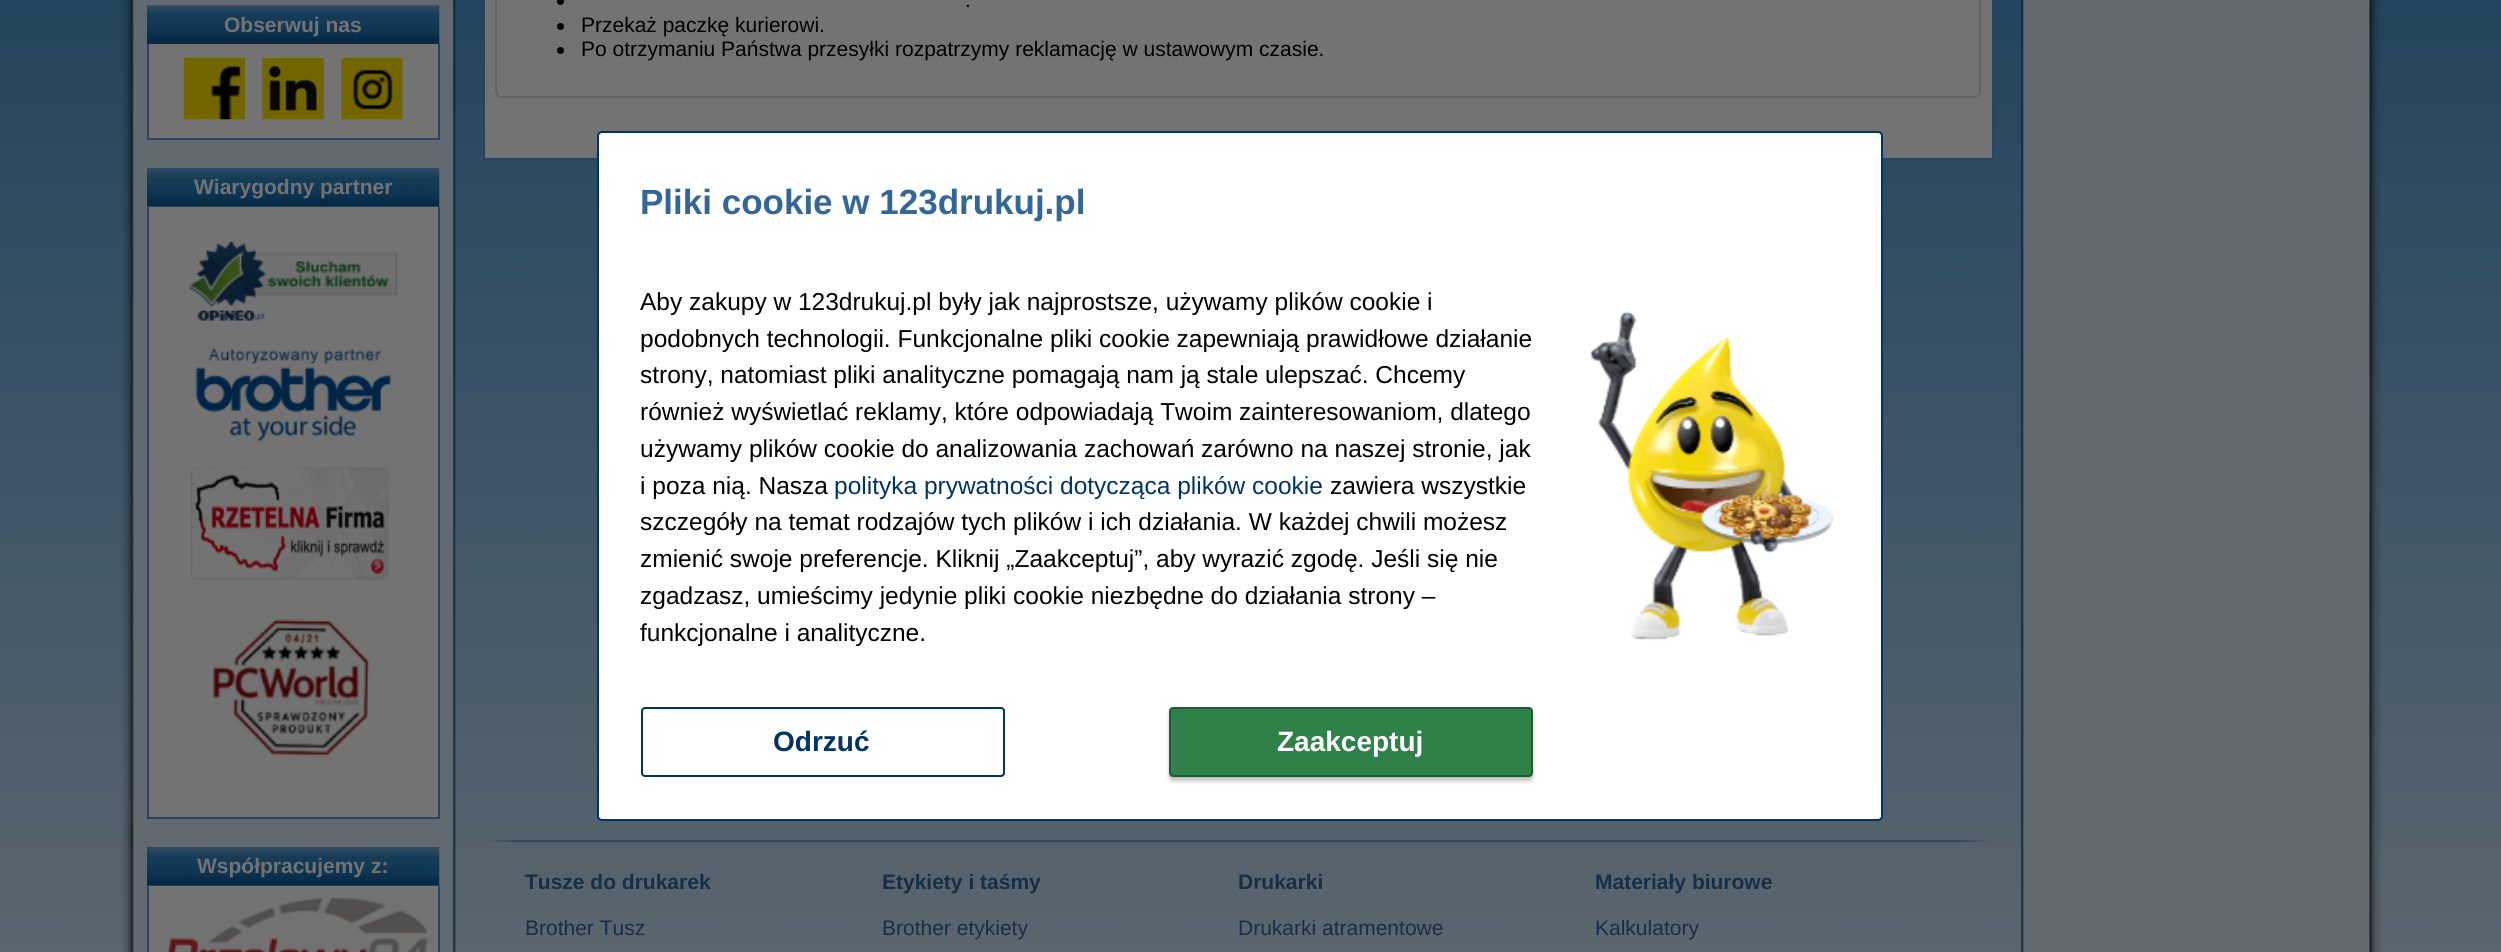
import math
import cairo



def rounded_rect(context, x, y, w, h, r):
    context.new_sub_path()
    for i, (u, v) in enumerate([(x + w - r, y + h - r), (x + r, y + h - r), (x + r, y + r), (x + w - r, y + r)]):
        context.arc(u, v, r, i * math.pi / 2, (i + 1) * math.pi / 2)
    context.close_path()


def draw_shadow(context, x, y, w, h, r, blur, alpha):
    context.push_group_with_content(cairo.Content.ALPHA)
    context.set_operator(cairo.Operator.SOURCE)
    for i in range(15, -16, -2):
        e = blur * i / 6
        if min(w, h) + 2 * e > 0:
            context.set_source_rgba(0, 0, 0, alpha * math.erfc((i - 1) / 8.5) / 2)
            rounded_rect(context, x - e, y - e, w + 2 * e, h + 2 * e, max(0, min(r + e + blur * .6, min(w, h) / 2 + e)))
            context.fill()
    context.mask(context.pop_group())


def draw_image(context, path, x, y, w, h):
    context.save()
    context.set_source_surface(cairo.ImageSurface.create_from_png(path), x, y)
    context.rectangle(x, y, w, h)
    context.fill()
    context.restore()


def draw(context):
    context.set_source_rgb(1, 1, 1)
    context.paint()
    draw_image(context, "images/1.png", 0, 0, 2501, 952)
    draw_image(context, "images/2.png", 121, 0, 2261, 952)
    draw_image(context, "images/3.png", 147, 5, 293, 39)
    context.set_source_rgb(115 / 255, 115 / 255, 115 / 255)
    context.rectangle(149, 44, 289, 94)
    context.fill()
    context.set_source_rgb(40 / 255, 68 / 255, 98 / 255)
    context.rectangle(438, 44, 2, 96)
    context.fill()
    context.rectangle(147, 138, 292, 2)
    context.fill()
    context.rectangle(147, 44, 2, 96)
    context.fill()
    draw_image(context, "images/4.png", 183, 58, 62, 62)
    draw_image(context, "images/5.png", 262, 58, 62, 62)
    draw_image(context, "images/6.png", 341, 58, 62, 62)
    draw_image(context, "images/7.png", 147, 168, 293, 39)
    context.set_source_rgb(115 / 255, 115 / 255, 115 / 255)
    context.rectangle(149, 207, 289, 610)
    context.fill()
    context.set_source_rgb(40 / 255, 68 / 255, 98 / 255)
    context.rectangle(438, 207, 2, 612)
    context.fill()
    context.rectangle(147, 817, 292, 2)
    context.fill()
    context.rectangle(147, 207, 2, 612)
    context.fill()
    draw_image(context, "images/8.png", 189, 241, 209, 80)
    draw_image(context, "images/9.png", 194, 348, 198, 94)
    draw_image(context, "images/10.png", 190, 467, 199, 113)
    draw_image(context, "images/11.png", 213, 619, 157, 138)
    draw_image(context, "images/12.png", 147, 847, 293, 39)
    context.set_source_rgb(115 / 255, 115 / 255, 115 / 255)
    context.rectangle(149, 886, 289, 66)
    context.fill()
    context.set_source_rgb(40 / 255, 68 / 255, 98 / 255)
    context.rectangle(438, 886, 2, 66)
    context.fill()
    context.rectangle(147, 886, 2, 66)
    context.fill()
    draw_image(context, "images/13.png", 167, 897, 261, 55)
    context.set_source_rgb(115 / 255, 115 / 255, 115 / 255)
    context.rectangle(485, 0, 1507, 158)
    context.fill()
    context.set_source_rgb(40 / 255, 68 / 255, 98 / 255)
    context.rectangle(1992, 0, 2, 159)
    context.fill()
    context.rectangle(483, 158, 1510, 2)
    context.fill()
    context.rectangle(483, 0, 2, 159)
    context.fill()
    rounded_rect(context, 496, -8, 1484, 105, 6)
    context.set_source_rgb(96 / 255, 100 / 255, 103 / 255)
    context.stroke()
    context.set_source_rgb(0, 0, 0)
    context.arc(560.5, 1.5, 3.5, 0, 2 * math.pi)
    context.fill()
    context.arc(560.5, 26.5, 3.5, 0, 2 * math.pi)
    context.fill()
    context.arc(560.5, 50.5, 3.5, 0, 2 * math.pi)
    context.fill()
    draw_image(context, "images/14.png", 486, 840, 1505, 2)
    context.set_source_rgb(1, 1, 1)
    rounded_rect(context, 598, 132, 1284, 688, 4)
    context.fill_preserve()
    context.set_source_rgb(0, 51 / 255, 102 / 255)
    context.stroke()
    rounded_rect(context, 642, 708, 362, 68, 3)
    context.stroke()
    context.set_source_rgb(0, 0, 0)
    draw_shadow(context, 1169, 711, 364, 70, 4, 2, 0.25)
    context.set_source_rgb(46 / 255, 129 / 255, 73 / 255)
    rounded_rect(context, 1170, 708, 362, 68, 3)
    context.fill_preserve()
    context.set_source_rgb(32 / 255, 90 / 255, 51 / 255)
    context.stroke()
    draw_image(context, "images/15.png", 1589, 311, 245, 330)
    context.select_font_face("Liberation Sans", cairo.FontSlant.NORMAL, cairo.FontWeight.BOLD)
    context.set_font_size(21)
    context.set_source_rgb(115 / 255, 115 / 255, 115 / 255)
    context.move_to(224, 32)
    context.show_text("Obserwuj nas")
    context.move_to(194, 194)
    context.show_text("Wiarygodny partner")
    context.move_to(197, 873)
    context.show_text("Współpracujemy z:")
    context.select_font_face("Liberation Sans")
    context.set_source_rgb(0, 0, 0)
    context.move_to(965, 7)
    context.show_text(".")
    context.move_to(581, 32)
    context.show_text("Przekaż paczkę kurierowi.")
    context.move_to(581, 56)
    context.show_text("Po otrzymaniu Państwa przesyłki rozpatrzymy reklamację w ustawowym czasie.")
    context.select_font_face("Liberation Sans", cairo.FontSlant.NORMAL, cairo.FontWeight.BOLD)
    context.set_source_rgb(23 / 255, 46 / 255, 69 / 255)
    context.move_to(525, 889)
    context.show_text("Tusze do drukarek")
    context.select_font_face("Liberation Sans")
    context.move_to(525, 935)
    context.show_text("Brother Tusz")
    context.select_font_face("Liberation Sans", cairo.FontSlant.NORMAL, cairo.FontWeight.BOLD)
    context.move_to(882, 889)
    context.show_text("Etykiety i taśmy")
    context.select_font_face("Liberation Sans")
    context.move_to(882, 935)
    context.show_text("Brother etykiety")
    context.select_font_face("Liberation Sans", cairo.FontSlant.NORMAL, cairo.FontWeight.BOLD)
    context.move_to(1238, 889)
    context.show_text("Drukarki")
    context.select_font_face("Liberation Sans")
    context.move_to(1238, 935)
    context.show_text("Drukarki atramentowe")
    context.select_font_face("Liberation Sans", cairo.FontSlant.NORMAL, cairo.FontWeight.BOLD)
    context.move_to(1595, 889)
    context.show_text("Materiały biurowe")
    context.select_font_face("Liberation Sans")
    context.move_to(1595, 935)
    context.show_text("Kalkulatory")
    context.select_font_face("Liberation Sans", cairo.FontSlant.NORMAL, cairo.FontWeight.BOLD)
    context.set_font_size(35)
    context.set_source_rgb(51 / 255, 102 / 255, 153 / 255)
    context.move_to(640, 214)
    context.show_text("Pliki cookie w 123drukuj.pl")
    context.select_font_face("Liberation Sans")
    context.set_font_size(24.5)
    context.set_source_rgb(0, 0, 0)
    context.move_to(640, 310)
    context.show_text("Aby zakupy w 123drukuj.pl były jak najprostsze, używamy plików cookie i")
    context.move_to(640, 347)
    context.show_text("podobnych technologii. Funkcjonalne pliki cookie zapewniają prawidłowe działanie")
    context.move_to(640, 383)
    context.show_text("strony, natomiast pliki analityczne pomagają nam ją stale ulepszać. Chcemy")
    context.move_to(640, 420)
    context.show_text("również wyświetlać reklamy, które odpowiadają Twoim zainteresowaniom, dlatego")
    context.move_to(640, 457)
    context.show_text("używamy plików cookie do analizowania zachowań zarówno na naszej stronie, jak")
    context.move_to(640, 494)
    context.show_text("i poza nią. Nasza")
    context.set_source_rgb(0, 51 / 255, 102 / 255)
    context.move_to(834, 494)
    context.show_text("polityka prywatności dotycząca plików cookie")
    context.set_source_rgb(0, 0, 0)
    context.move_to(1330, 494)
    context.show_text("zawiera wszystkie")
    context.move_to(640, 530)
    context.show_text("szczegóły na temat rodzajów tych plików i ich działania. W każdej chwili możesz")
    context.move_to(640, 567)
    context.show_text("zmienić swoje preferencje. Kliknij „Zaakceptuj”, aby wyrazić zgodę. Jeśli się nie")
    context.move_to(640, 604)
    context.show_text("zgadzasz, umieścimy jedynie pliki cookie niezbędne do działania strony –")
    context.move_to(640, 641)
    context.show_text("funkcjonalne i analityczne.")
    context.select_font_face("Liberation Sans", cairo.FontSlant.NORMAL, cairo.FontWeight.BOLD)
    context.set_font_size(28)
    context.set_source_rgb(0, 51 / 255, 102 / 255)
    context.move_to(773, 751)
    context.show_text("Odrzuć")
    context.set_source_rgb(1, 1, 1)
    context.move_to(1277, 751)
    context.show_text("Zaakceptuj")


surface = cairo.ImageSurface(cairo.Format.RGB24, 2501, 952)
context = cairo.Context(surface)
options = cairo.FontOptions()
options.set_hint_metrics(cairo.HintMetrics.OFF)
options.set_hint_style(cairo.HintStyle.NONE)
context.set_font_options(options)
context.set_miter_limit(4)
draw(context)
surface.write_to_png("out.png")
